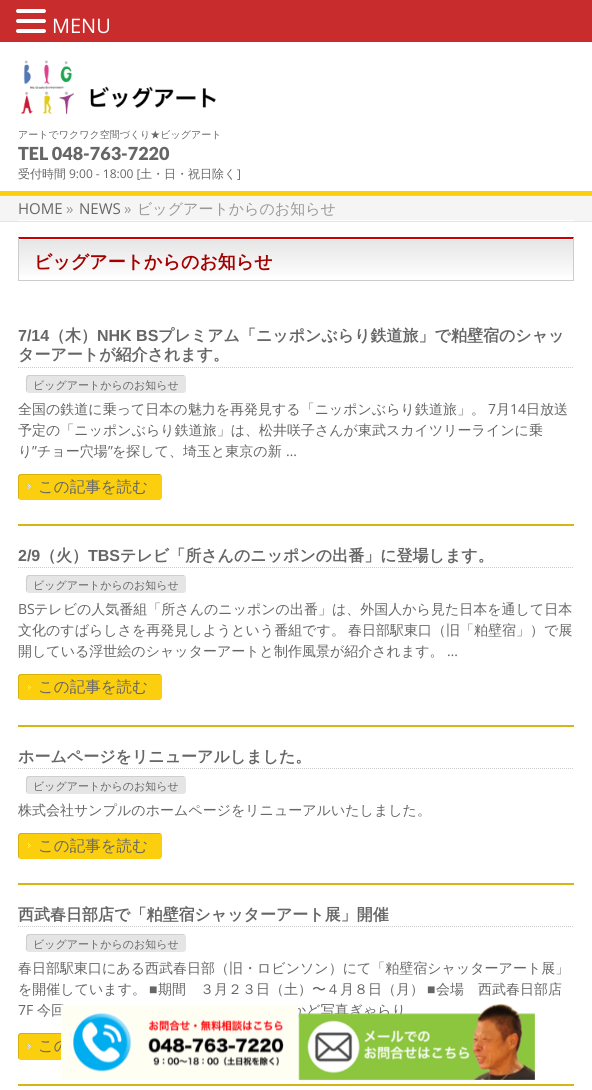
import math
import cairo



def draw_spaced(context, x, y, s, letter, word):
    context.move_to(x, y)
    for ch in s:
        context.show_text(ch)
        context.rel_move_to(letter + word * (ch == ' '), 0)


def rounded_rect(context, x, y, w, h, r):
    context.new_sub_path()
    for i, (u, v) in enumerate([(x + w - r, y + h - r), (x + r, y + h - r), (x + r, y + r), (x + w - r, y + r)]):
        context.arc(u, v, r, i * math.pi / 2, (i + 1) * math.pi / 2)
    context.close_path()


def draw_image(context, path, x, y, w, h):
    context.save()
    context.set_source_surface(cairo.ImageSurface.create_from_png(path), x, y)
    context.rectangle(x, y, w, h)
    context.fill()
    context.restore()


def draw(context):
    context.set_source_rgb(251 / 255, 206 / 255, 14 / 255)
    context.paint()
    context.set_source_rgb(201 / 255, 44 / 255, 44 / 255)
    context.rectangle(0, 0, 592, 42)
    context.fill()
    context.set_source_rgb(1, 1, 1)
    rounded_rect(context, 16, 9, 30, 4, 2)
    context.fill()
    rounded_rect(context, 16, 19, 30, 4, 2)
    context.fill()
    rounded_rect(context, 16, 29, 30, 4, 2)
    context.fill()
    context.rectangle(0, 42, 592, 149)
    context.fill()
    draw_image(context, "images/1.png", 21, 60, 195, 55)
    context.set_source_rgb(204 / 255, 204 / 255, 204 / 255)
    context.rectangle(0, 195, 592, 1)
    context.fill()
    context.set_source_rgb(245 / 255, 245 / 255, 245 / 255)
    context.rectangle(0, 196, 592, 25)
    context.fill()
    context.set_source_rgb(229 / 255, 229 / 255, 229 / 255)
    context.rectangle(0, 221, 592, 1)
    context.fill()
    context.set_source_rgb(1, 1, 1)
    context.rectangle(18, 220, 556, 1)
    context.fill()
    context.rectangle(0, 222, 592, 868)
    context.fill()
    gradient = cairo.LinearGradient(19, 239, 19, 280)
    gradient.add_color_stop_rgba(0, 229 / 255, 229 / 255, 229 / 255, 1)
    gradient.add_color_stop_rgba(1, 1, 1, 1, 1)
    context.set_source(gradient)
    context.rectangle(19, 240, 554, 36)
    context.fill()
    context.set_source_rgb(204 / 255, 0, 0)
    context.new_path()
    context.move_to(18, 237)
    context.line_to(574, 237)
    context.line_to(573, 239)
    context.line_to(19, 239)
    context.close_path()
    context.fill()
    context.set_source_rgb(204 / 255, 204 / 255, 204 / 255)
    context.new_path()
    context.move_to(574, 237)
    context.line_to(574, 281)
    context.line_to(573, 280)
    context.line_to(573, 239)
    context.close_path()
    context.fill()
    context.rectangle(18, 280, 556, 1)
    context.fill()
    context.new_path()
    context.move_to(18, 281)
    context.line_to(18, 237)
    context.line_to(19, 239)
    context.line_to(19, 280)
    context.close_path()
    context.fill()
    context.set_source_rgb(212 / 255, 183 / 255, 22 / 255)
    context.rectangle(18, 524, 556, 2)
    context.fill()
    context.new_path()
    context.move_to(18, 367.5)
    context.line_to(574, 367.5)
    context.set_source_rgb(204 / 255, 204 / 255, 204 / 255)
    context.set_line_width(1)
    context.set_dash([1, 1])
    context.stroke()
    context.set_source_rgb(229 / 255, 229 / 255, 229 / 255)
    rounded_rect(context, 26, 375, 160, 18, 3)
    context.fill()
    context.set_source_rgba(0, 0, 0, 0.1)
    context.new_path()
    context.move_to(30, 376)
    context.line_to(185, 376)
    context.line_to(183, 375)
    context.line_to(28, 375)
    context.curve_to(25, 376, 26, 382, 26, 384)
    context.curve_to(26, 386, 25, 391, 27, 392)
    context.line_to(27, 385)
    context.curve_to(27, 382, 26, 376, 30, 376)
    context.close_path()
    context.fill()
    context.set_source_rgb(251 / 255, 206 / 255, 14 / 255)
    rounded_rect(context, 18, 474, 144, 26, 3)
    context.fill()
    draw_image(context, "images/2.png", 28, 484, 3, 5)
    context.set_source_rgba(0, 0, 0, 0.15)
    context.new_path()
    context.move_to(22, 475)
    context.line_to(161, 475)
    context.curve_to(161, 474, 160, 474, 159, 474)
    context.line_to(21, 474)
    context.curve_to(19, 474, 18, 475, 18, 477)
    context.line_to(18, 497)
    context.curve_to(18, 498, 18, 499, 19, 499)
    context.line_to(19, 481)
    context.curve_to(19, 479, 18, 475, 22, 475)
    context.close_path()
    context.fill()
    context.set_source_rgb(212 / 255, 183 / 255, 22 / 255)
    context.rectangle(18, 725, 556, 2)
    context.fill()
    context.new_path()
    context.move_to(18, 567.5)
    context.line_to(574, 567.5)
    context.set_source_rgb(204 / 255, 204 / 255, 204 / 255)
    context.stroke()
    context.set_source_rgb(229 / 255, 229 / 255, 229 / 255)
    rounded_rect(context, 26, 575, 160, 18, 3)
    context.fill()
    context.set_source_rgba(0, 0, 0, 0.1)
    context.new_path()
    context.move_to(30, 576)
    context.line_to(185, 576)
    context.line_to(183, 575)
    context.line_to(28, 575)
    context.curve_to(25, 576, 26, 582, 26, 584)
    context.curve_to(26, 586, 25, 591, 27, 592)
    context.line_to(27, 585)
    context.curve_to(27, 582, 26, 576, 30, 576)
    context.close_path()
    context.fill()
    context.set_source_rgb(251 / 255, 206 / 255, 14 / 255)
    rounded_rect(context, 18, 674, 144, 26, 3)
    context.fill()
    draw_image(context, "images/2.png", 28, 685, 3, 5)
    context.set_source_rgba(0, 0, 0, 0.15)
    context.new_path()
    context.move_to(22, 675)
    context.line_to(161, 675)
    context.curve_to(161, 674, 160, 674, 159, 674)
    context.line_to(21, 674)
    context.curve_to(19, 674, 18, 675, 18, 677)
    context.line_to(18, 697)
    context.curve_to(18, 698, 18, 699, 19, 699)
    context.line_to(19, 681)
    context.curve_to(19, 679, 18, 675, 22, 675)
    context.close_path()
    context.fill()
    context.set_source_rgb(212 / 255, 183 / 255, 22 / 255)
    context.rectangle(18, 883, 556, 2)
    context.fill()
    context.new_path()
    context.move_to(18, 768.5)
    context.line_to(574, 768.5)
    context.set_source_rgb(204 / 255, 204 / 255, 204 / 255)
    context.stroke()
    context.set_source_rgb(229 / 255, 229 / 255, 229 / 255)
    rounded_rect(context, 26, 776, 160, 18, 3)
    context.fill()
    context.set_source_rgba(0, 0, 0, 0.1)
    context.new_path()
    context.move_to(30, 777)
    context.line_to(185, 777)
    context.line_to(183, 776)
    context.line_to(28, 776)
    context.curve_to(25, 777, 26, 783, 26, 785)
    context.curve_to(26, 787, 25, 792, 27, 793)
    context.line_to(27, 786)
    context.curve_to(27, 783, 26, 777, 30, 777)
    context.close_path()
    context.fill()
    context.set_source_rgb(251 / 255, 206 / 255, 14 / 255)
    rounded_rect(context, 18, 833, 144, 26, 3)
    context.fill()
    draw_image(context, "images/2.png", 28, 843, 3, 5)
    context.set_source_rgba(0, 0, 0, 0.15)
    context.new_path()
    context.move_to(22, 834)
    context.line_to(161, 834)
    context.curve_to(161, 833, 160, 833, 159, 833)
    context.line_to(21, 833)
    context.curve_to(19, 833, 18, 834, 18, 836)
    context.line_to(18, 856)
    context.curve_to(18, 857, 18, 858, 19, 858)
    context.line_to(19, 840)
    context.curve_to(19, 838, 18, 834, 22, 834)
    context.close_path()
    context.fill()
    context.set_source_rgb(212 / 255, 183 / 255, 22 / 255)
    context.rectangle(18, 1084, 556, 2)
    context.fill()
    context.new_path()
    context.move_to(18, 926.5)
    context.line_to(574, 926.5)
    context.set_source_rgb(204 / 255, 204 / 255, 204 / 255)
    context.stroke()
    context.set_source_rgb(229 / 255, 229 / 255, 229 / 255)
    rounded_rect(context, 26, 934, 160, 18, 3)
    context.fill()
    context.set_source_rgba(0, 0, 0, 0.1)
    context.new_path()
    context.move_to(30, 935)
    context.line_to(185, 935)
    context.line_to(183, 934)
    context.line_to(28, 934)
    context.curve_to(25, 935, 26, 941, 26, 943)
    context.curve_to(26, 945, 25, 950, 27, 951)
    context.line_to(27, 944)
    context.curve_to(27, 941, 26, 935, 30, 935)
    context.close_path()
    context.fill()
    context.set_source_rgb(251 / 255, 206 / 255, 14 / 255)
    rounded_rect(context, 18, 1033, 144, 27, 3)
    context.fill()
    draw_image(context, "images/2.png", 28, 1044, 3, 5)
    context.set_source_rgba(0, 0, 0, 0.15)
    context.new_path()
    context.move_to(22, 1034)
    context.line_to(161, 1034)
    context.curve_to(161, 1033, 160, 1033, 159, 1033)
    context.line_to(21, 1033)
    context.curve_to(19, 1033, 18, 1034, 18, 1036)
    context.line_to(18, 1057)
    context.curve_to(18, 1058, 18, 1059, 19, 1059)
    context.line_to(19, 1040)
    context.curve_to(19, 1038, 18, 1034, 22, 1034)
    context.close_path()
    context.fill()
    context.select_font_face("Open Sans")
    context.set_font_size(20)
    context.set_source_rgb(1, 1, 1)
    context.move_to(52, 33)
    context.show_text("MENU")
    context.select_font_face("WenQuanYi Zen Hei Medium")
    context.set_font_size(10)
    context.set_source_rgb(102 / 255, 102 / 255, 102 / 255)
    context.move_to(18, 138)
    context.show_text("アートでワクワク空間づくり★ビッグアート")
    context.select_font_face("Lato Black")
    context.set_font_size(18)
    context.move_to(18, 160)
    context.show_text("TEL 048-763-7220")
    context.select_font_face("WenQuanYi Zen Hei Medium")
    context.set_font_size(12)
    context.move_to(18, 178)
    context.show_text("受付時間")
    context.select_font_face("Open Sans")
    context.move_to(69, 178)
    context.show_text("9:00 - 18:00 [")
    context.select_font_face("WenQuanYi Zen Hei Medium")
    context.move_to(140, 178)
    context.show_text("土・日・祝日除く")
    context.select_font_face("Open Sans")
    context.move_to(237, 178)
    context.show_text("]")
    context.set_font_size(15)
    context.move_to(18, 214)
    context.show_text("HOME")
    context.set_source_rgb(153 / 255, 153 / 255, 153 / 255)
    context.move_to(66, 214)
    context.show_text("»")
    context.set_source_rgb(102 / 255, 102 / 255, 102 / 255)
    context.move_to(79, 214)
    context.show_text("NEWS")
    context.set_source_rgb(153 / 255, 153 / 255, 153 / 255)
    context.move_to(124, 214)
    context.show_text("»")
    context.select_font_face("WenQuanYi Zen Hei Medium")
    context.move_to(137, 214)
    context.show_text("ビッグアートからのお知らせ")
    context.select_font_face("WenQuanYi Zen Hei", cairo.FontSlant.NORMAL, cairo.FontWeight.BOLD)
    context.set_font_size(18)
    context.set_source_rgb(163 / 255, 0, 0)
    context.move_to(34, 268)
    context.show_text("ビッグアートからのお知らせ")
    context.select_font_face("Liberation Sans", cairo.FontSlant.NORMAL, cairo.FontWeight.BOLD)
    context.set_font_size(16)
    context.set_source_rgb(102 / 255, 102 / 255, 102 / 255)
    context.move_to(18, 341)
    context.show_text("7/14")
    context.select_font_face("WenQuanYi Zen Hei", cairo.FontSlant.NORMAL, cairo.FontWeight.BOLD)
    context.move_to(49, 341)
    context.show_text("（木）")
    context.select_font_face("Liberation Sans", cairo.FontSlant.NORMAL, cairo.FontWeight.BOLD)
    context.move_to(97, 341)
    context.show_text("NHK BS")
    context.select_font_face("WenQuanYi Zen Hei", cairo.FontSlant.NORMAL, cairo.FontWeight.BOLD)
    context.move_to(158, 341)
    context.show_text("プレミアム「ニッポンぶらり鉄道旅」で粕壁宿のシャッ")
    context.move_to(18, 360)
    context.show_text("ターアートが紹介されます。")
    context.select_font_face("WenQuanYi Zen Hei Medium")
    context.set_font_size(11)
    context.move_to(33, 389)
    context.show_text("ビッグアートからのお知らせ")
    context.set_font_size(14)
    context.move_to(18, 414)
    context.show_text("全国の鉄道に乗って日本の魅力を再発見する「ニッポンぶらり鉄道旅」。")
    context.select_font_face("Open Sans")
    context.move_to(488, 414)
    context.show_text("7")
    context.select_font_face("WenQuanYi Zen Hei Medium")
    context.move_to(496, 414)
    context.show_text("月")
    context.select_font_face("Open Sans")
    context.move_to(510, 414)
    context.show_text("14")
    context.select_font_face("WenQuanYi Zen Hei Medium")
    context.move_to(526, 414)
    context.show_text("日放送")
    context.move_to(18, 435)
    context.show_text("予定の「ニッポンぶらり鉄道旅」は、松井咲子さんが東武スカイツリーラインに乗")
    context.move_to(18, 456)
    context.show_text("り")
    context.select_font_face("Open Sans")
    context.move_to(32, 456)
    context.show_text("”")
    context.select_font_face("WenQuanYi Zen Hei Medium")
    context.move_to(37, 456)
    context.show_text("チョー穴場")
    context.select_font_face("Open Sans")
    context.move_to(108, 456)
    context.show_text("”")
    context.select_font_face("WenQuanYi Zen Hei Medium")
    context.move_to(112, 456)
    context.show_text("を探して、埼玉と東京の新")
    context.select_font_face("Open Sans")
    context.move_to(286, 456)
    context.show_text("…")
    context.select_font_face("WenQuanYi Zen Hei Medium")
    context.set_font_size(15.5)
    context.move_to(38, 492)
    context.show_text("この記事を読む")
    context.select_font_face("Liberation Sans", cairo.FontSlant.NORMAL, cairo.FontWeight.BOLD)
    context.set_font_size(16)
    context.move_to(18, 561)
    context.show_text("2/9")
    context.select_font_face("WenQuanYi Zen Hei", cairo.FontSlant.NORMAL, cairo.FontWeight.BOLD)
    context.move_to(40, 561)
    context.show_text("（火）")
    context.select_font_face("Liberation Sans", cairo.FontSlant.NORMAL, cairo.FontWeight.BOLD)
    context.move_to(88, 561)
    context.show_text("TBS")
    context.select_font_face("WenQuanYi Zen Hei", cairo.FontSlant.NORMAL, cairo.FontWeight.BOLD)
    context.move_to(120, 561)
    context.show_text("テレビ「所さんのニッポンの出番」に登場します。")
    context.select_font_face("WenQuanYi Zen Hei Medium")
    context.set_font_size(11)
    context.move_to(33, 589)
    context.show_text("ビッグアートからのお知らせ")
    context.select_font_face("Open Sans")
    context.set_font_size(14)
    context.move_to(18, 614)
    context.show_text("BS")
    context.select_font_face("WenQuanYi Zen Hei Medium")
    context.move_to(34, 614)
    context.show_text("テレビの人気番組「所さんのニッポンの出番」は、外国人から見た日本を通して日本")
    draw_spaced(context, 18, 635, "文化のすばらしさを再発見しようという番組です。 春日部駅東口（旧「粕壁宿」）で展", 0, -1)
    context.move_to(18, 656)
    context.show_text("開している浮世絵のシャッターアートと制作風景が紹介されます。")
    context.select_font_face("Open Sans")
    context.move_to(447, 656)
    context.show_text("…")
    context.select_font_face("WenQuanYi Zen Hei Medium")
    context.set_font_size(15.5)
    context.move_to(38, 692)
    context.show_text("この記事を読む")
    context.select_font_face("WenQuanYi Zen Hei", cairo.FontSlant.NORMAL, cairo.FontWeight.BOLD)
    context.set_font_size(16)
    context.move_to(18, 762)
    context.show_text("ホームページをリニューアルしました。")
    context.select_font_face("WenQuanYi Zen Hei Medium")
    context.set_font_size(11)
    context.move_to(33, 790)
    context.show_text("ビッグアートからのお知らせ")
    context.set_font_size(14)
    context.move_to(18, 815)
    context.show_text("株式会社サンプルのホームページをリニューアルいたしました。")
    context.set_font_size(15.5)
    context.move_to(38, 851)
    context.show_text("この記事を読む")
    context.select_font_face("WenQuanYi Zen Hei", cairo.FontSlant.NORMAL, cairo.FontWeight.BOLD)
    context.set_font_size(16)
    context.move_to(18, 920)
    context.show_text("西武春日部店で「粕壁宿シャッターアート展」開催")
    context.select_font_face("WenQuanYi Zen Hei Medium")
    context.set_font_size(11)
    context.move_to(33, 948)
    context.show_text("ビッグアートからのお知らせ")
    context.set_font_size(14)
    context.move_to(18, 973)
    context.show_text("春日部駅東口にある西武春日部（旧・ロビンソン）にて「粕壁宿シャッターアート展」")
    context.move_to(18, 994)
    context.show_text("を開催しています。")
    context.select_font_face("Liberation Sans")
    context.move_to(149, 994)
    context.show_text("■")
    context.select_font_face("WenQuanYi Zen Hei Medium")
    context.move_to(158, 994)
    context.show_text("期間　３月２３日（土）〜４月８日（月）")
    context.select_font_face("Liberation Sans")
    context.move_to(427, 994)
    context.show_text("■")
    context.select_font_face("WenQuanYi Zen Hei Medium")
    context.move_to(436, 994)
    context.show_text("会場　西武春日部店")
    context.select_font_face("Open Sans")
    context.move_to(18, 1015)
    context.show_text("7F")
    context.select_font_face("WenQuanYi Zen Hei Medium")
    context.move_to(37, 1015)
    context.show_text("今回")
    context.move_to(292, 1015)
    context.show_text("かど写真ぎゃらり")
    context.set_font_size(15.5)
    context.move_to(38, 1051)
    context.show_text("この")
    draw_image(context, "images/3.png", 61, 1004, 237, 76)
    draw_image(context, "images/4.png", 298, 1003, 237, 77)


surface = cairo.ImageSurface(cairo.Format.RGB24, 592, 1090)
context = cairo.Context(surface)
options = cairo.FontOptions()
options.set_hint_metrics(cairo.HintMetrics.OFF)
options.set_hint_style(cairo.HintStyle.NONE)
context.set_font_options(options)
context.set_miter_limit(4)
draw(context)
surface.write_to_png("out.png")
